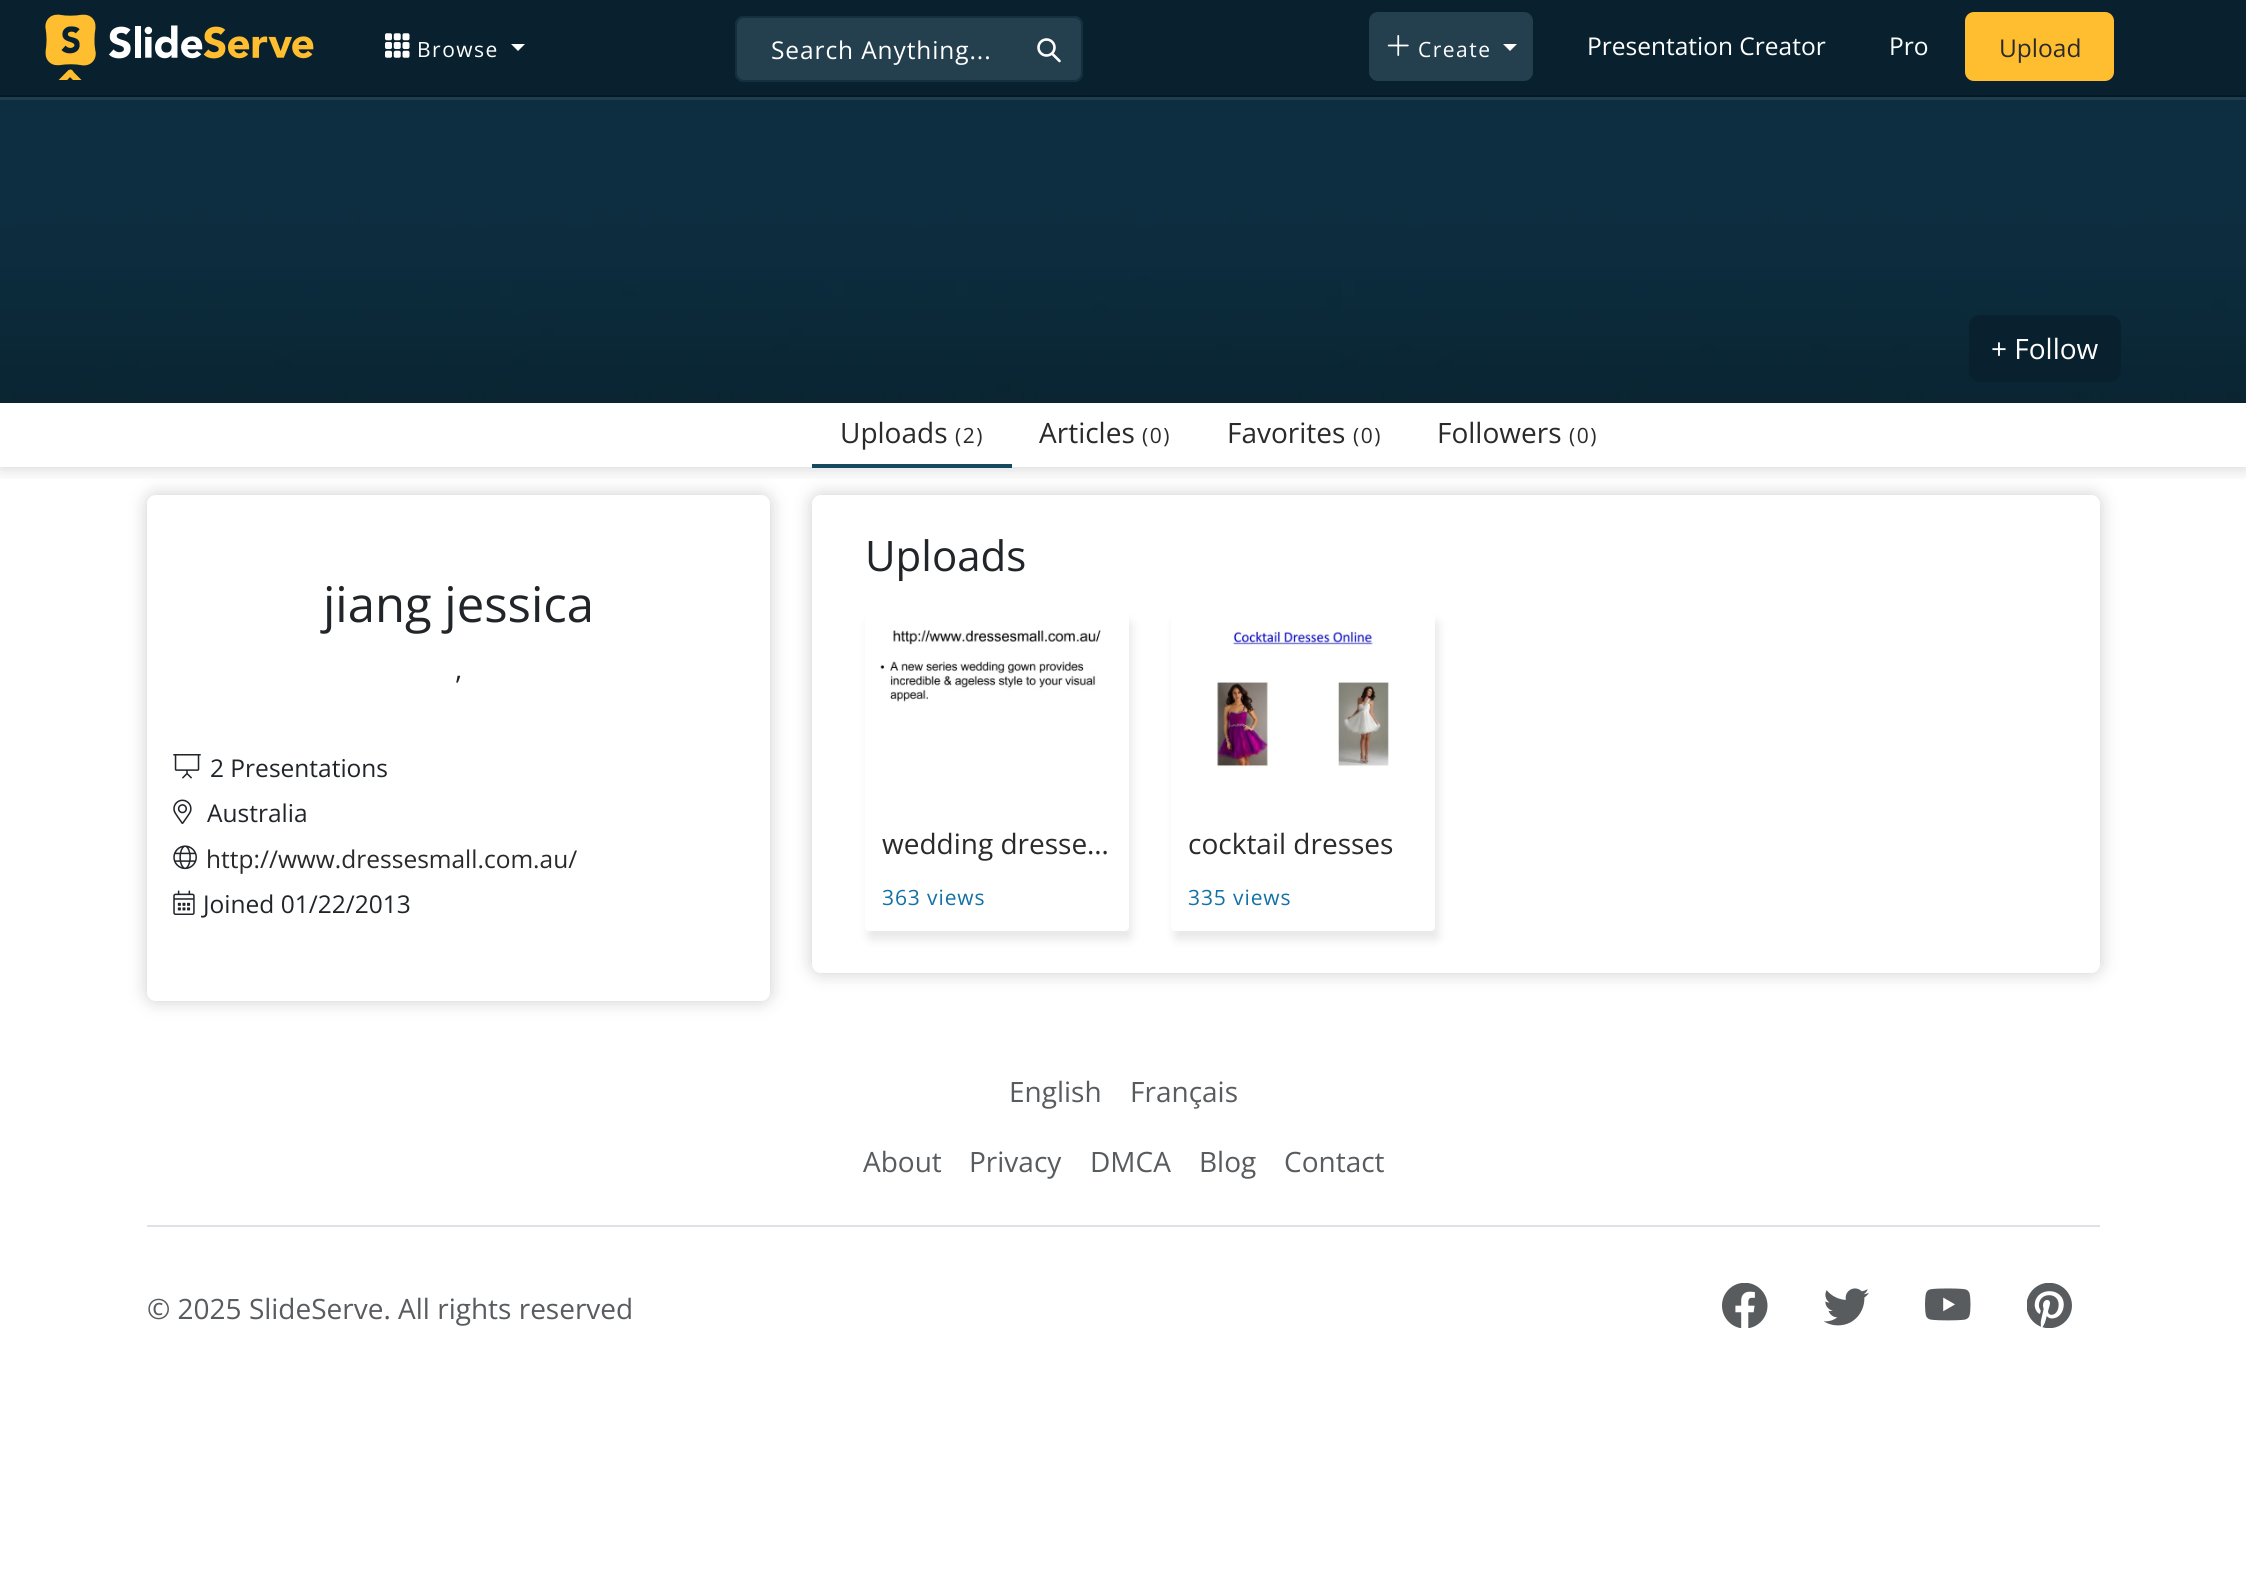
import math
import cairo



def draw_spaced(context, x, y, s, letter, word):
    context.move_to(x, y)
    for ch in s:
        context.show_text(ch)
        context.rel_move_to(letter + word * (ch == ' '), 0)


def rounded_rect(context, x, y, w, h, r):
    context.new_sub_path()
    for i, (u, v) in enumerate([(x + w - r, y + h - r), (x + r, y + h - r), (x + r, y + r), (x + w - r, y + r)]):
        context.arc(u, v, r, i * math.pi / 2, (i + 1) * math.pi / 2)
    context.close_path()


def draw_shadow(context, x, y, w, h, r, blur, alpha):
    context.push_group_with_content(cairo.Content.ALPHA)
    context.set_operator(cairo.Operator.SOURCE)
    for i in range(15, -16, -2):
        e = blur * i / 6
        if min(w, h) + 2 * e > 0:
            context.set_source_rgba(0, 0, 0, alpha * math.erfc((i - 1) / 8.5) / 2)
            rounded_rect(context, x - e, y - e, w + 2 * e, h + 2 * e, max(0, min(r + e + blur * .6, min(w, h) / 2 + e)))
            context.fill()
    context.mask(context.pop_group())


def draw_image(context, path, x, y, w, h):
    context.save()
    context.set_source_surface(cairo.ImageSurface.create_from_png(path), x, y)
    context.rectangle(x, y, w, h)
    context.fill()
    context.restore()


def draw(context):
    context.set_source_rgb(1, 1, 1)
    context.paint()
    context.set_source_rgb(30 / 255, 61 / 255, 78 / 255)
    context.rectangle(0, 97, 2246, 3)
    context.fill()
    context.set_source_rgb(9 / 255, 33 / 255, 46 / 255)
    context.rectangle(0, 0, 2246, 95)
    context.fill()
    context.set_source_rgb(6 / 255, 25 / 255, 36 / 255)
    context.rectangle(0, 95, 2246, 2)
    context.fill()
    draw_image(context, "images/1.png", 45, 14, 269, 66)
    draw_image(context, "images/2.png", 385, 33, 25, 25)
    context.set_source_rgb(1, 1, 1)
    context.new_path()
    context.move_to(511, 44)
    context.line_to(525, 44)
    context.line_to(518, 51)
    context.close_path()
    context.fill()
    context.set_source_rgb(36 / 255, 63 / 255, 78 / 255)
    rounded_rect(context, 1370, 13, 162, 67, 8)
    context.fill_preserve()
    context.stroke()
    draw_image(context, "images/3.png", 1387, 35, 22, 21)
    context.set_source_rgb(1, 1, 1)
    context.new_path()
    context.move_to(1503, 44)
    context.line_to(1517, 44)
    context.line_to(1510, 51)
    context.close_path()
    context.fill()
    context.set_source_rgb(1, 190 / 255, 47 / 255)
    rounded_rect(context, 1966, 13, 147, 67, 8)
    context.fill_preserve()
    context.stroke()
    context.set_source_rgb(36 / 255, 63 / 255, 78 / 255)
    rounded_rect(context, 735, 16, 348, 66, 9)
    context.fill()
    context.arc(1046.5, 47.5, 8, 0, 2 * math.pi)
    context.set_source_rgb(1, 1, 1)
    context.set_line_width(2.6)
    context.stroke()
    context.new_path()
    context.move_to(1059.5, 61)
    context.line_to(1052.5, 54)
    context.set_line_cap(cairo.LineCap.ROUND)
    context.set_line_join(cairo.LineJoin.ROUND)
    context.stroke()
    rounded_rect(context, 736, 17, 346, 64, 8)
    context.set_source_rgb(21 / 255, 46 / 255, 64 / 255)
    context.set_line_width(2)
    context.set_line_cap(cairo.LineCap.BUTT)
    context.set_line_join(cairo.LineJoin.MITER)
    context.stroke()
    context.save()
    context.rectangle(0, 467, 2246, 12)
    context.clip()
    context.set_source_rgb(0, 0, 0)
    draw_shadow(context, 0, 403, 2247, 64, 0, 9, 0.2)
    context.restore()
    context.set_source_rgb(12 / 255, 32 / 255, 46 / 255)
    context.rectangle(0, 402, 2246, 1)
    context.fill()
    draw_image(context, "images/4.png", 0, 100, 2246, 302)
    context.set_source_rgb(9 / 255, 33 / 255, 46 / 255)
    rounded_rect(context, 1970, 316, 150, 65, 10)
    context.fill_preserve()
    context.stroke()
    context.set_source_rgb(21 / 255, 73 / 255, 95 / 255)
    context.rectangle(812, 464, 200, 4)
    context.fill()
    context.set_source_rgb(0, 0, 0)
    draw_shadow(context, 147, 495, 623, 506, 9, 9, 0.2)
    context.set_source_rgb(1, 1, 1)
    rounded_rect(context, 147, 495, 623, 506, 9)
    context.fill()
    draw_image(context, "images/5.png", 173, 754, 28, 25)
    draw_image(context, "images/6.png", 173, 799, 19, 25)
    draw_image(context, "images/7.png", 173, 845, 24, 25)
    draw_image(context, "images/8.png", 173, 890, 22, 25)
    context.set_source_rgb(0, 0, 0)
    draw_shadow(context, 812, 495, 1288, 478, 9, 9, 0.2)
    context.set_source_rgb(1, 1, 1)
    rounded_rect(context, 812, 495, 1288, 478, 9)
    context.fill()
    context.set_source_rgb(199 / 255, 199 / 255, 199 / 255)
    draw_shadow(context, 868, 621, 264, 319, 4, 4.5, 0.4)
    context.set_source_rgb(1, 1, 1)
    rounded_rect(context, 865, 613, 264, 318, 4)
    context.fill()
    draw_image(context, "images/9.png", 880, 630, 221, 72)
    context.set_source_rgb(199 / 255, 199 / 255, 199 / 255)
    draw_shadow(context, 1174, 621, 265, 319, 4, 4.5, 0.4)
    context.set_source_rgb(1, 1, 1)
    rounded_rect(context, 1171, 613, 264, 318, 4)
    context.fill()
    draw_image(context, "images/10.png", 1216, 630, 173, 138)
    context.set_source_rgb(222 / 255, 226 / 255, 230 / 255)
    context.rectangle(147, 1225, 1953, 2)
    context.fill()
    draw_image(context, "images/11.png", 1722, 1283, 46, 45)
    draw_image(context, "images/12.png", 1824, 1288, 45, 38)
    draw_image(context, "images/13.png", 1925, 1288, 46, 33)
    draw_image(context, "images/14.png", 2027, 1283, 45, 45)
    context.select_font_face("Open Sans")
    context.set_font_size(21)
    context.set_source_rgb(1, 1, 1)
    draw_spaced(context, 417, 57, "Browse", 1.5, 0)
    draw_spaced(context, 1418, 57, "Create", 1.5, 0)
    context.set_font_size(24.5)
    context.move_to(1587, 55)
    context.show_text("Presentation Creator")
    context.move_to(1889, 55)
    context.show_text("Pro")
    context.set_source_rgb(43 / 255, 42 / 255, 42 / 255)
    context.move_to(1999, 57)
    context.show_text("Upload")
    context.set_source_rgb(1, 1, 1)
    draw_spaced(context, 771, 59, "Search Anything...", 0.9, 0)
    context.set_font_size(28)
    context.move_to(1991, 359)
    context.show_text("+ Follow")
    context.set_source_rgb(43 / 255, 42 / 255, 42 / 255)
    context.move_to(840, 443)
    context.show_text("Uploads")
    context.set_font_size(21)
    draw_spaced(context, 955, 443, "(2)", 1.5, 0)
    context.set_font_size(28)
    context.move_to(1039, 443)
    context.show_text("Articles")
    context.set_font_size(21)
    draw_spaced(context, 1142, 443, "(0)", 1.5, 0)
    context.set_font_size(28)
    context.move_to(1227, 443)
    context.show_text("Favorites")
    context.set_font_size(21)
    draw_spaced(context, 1353, 443, "(0)", 1.5, 0)
    context.set_font_size(28)
    context.move_to(1437, 443)
    context.show_text("Followers")
    context.set_font_size(21)
    draw_spaced(context, 1569, 443, "(0)", 1.5, 0)
    context.set_font_size(49)
    context.set_source_rgb(33 / 255, 37 / 255, 41 / 255)
    context.move_to(323, 622)
    context.show_text("jiang jessica")
    context.set_font_size(28)
    context.move_to(455, 679)
    context.show_text(",")
    context.set_font_size(24.5)
    context.move_to(210, 777)
    context.show_text("2 Presentations")
    context.move_to(207, 822)
    context.show_text("Australia")
    context.set_source_rgb(43 / 255, 42 / 255, 42 / 255)
    context.move_to(206, 868)
    context.show_text("http://www.dressesmall.com.au/")
    context.set_source_rgb(33 / 255, 37 / 255, 41 / 255)
    context.move_to(203, 913)
    context.show_text("Joined 01/22/2013")
    context.set_font_size(42)
    context.move_to(865, 571)
    context.show_text("Uploads")
    context.set_font_size(28)
    context.set_source_rgb(43 / 255, 42 / 255, 42 / 255)
    context.move_to(882, 854)
    context.show_text("wedding dresse…")
    context.set_font_size(21)
    context.set_source_rgb(18 / 255, 113 / 255, 165 / 255)
    draw_spaced(context, 882, 905, "363 views", 0.9, 0)
    context.set_font_size(28)
    context.set_source_rgb(43 / 255, 42 / 255, 42 / 255)
    context.move_to(1188, 854)
    context.show_text("cocktail dresses")
    context.set_font_size(21)
    context.set_source_rgb(18 / 255, 113 / 255, 165 / 255)
    draw_spaced(context, 1188, 905, "335 views", 0.9, 0)
    context.set_font_size(28)
    context.set_source_rgb(89 / 255, 92 / 255, 95 / 255)
    context.move_to(1009, 1102)
    context.show_text("English")
    context.move_to(1130, 1102)
    context.show_text("Français")
    context.move_to(863, 1172)
    context.show_text("About")
    context.move_to(969, 1172)
    context.show_text("Privacy")
    context.move_to(1090, 1172)
    context.show_text("DMCA")
    context.move_to(1199, 1172)
    context.show_text("Blog")
    context.move_to(1284, 1172)
    context.show_text("Contact")
    context.move_to(147, 1319)
    context.show_text("© 2025 SlideServe. All rights reserved")


surface = cairo.ImageSurface(cairo.Format.RGB24, 2246, 1574)
context = cairo.Context(surface)
options = cairo.FontOptions()
options.set_hint_metrics(cairo.HintMetrics.OFF)
options.set_hint_style(cairo.HintStyle.NONE)
context.set_font_options(options)
context.set_miter_limit(4)
draw(context)
surface.write_to_png("out.png")
